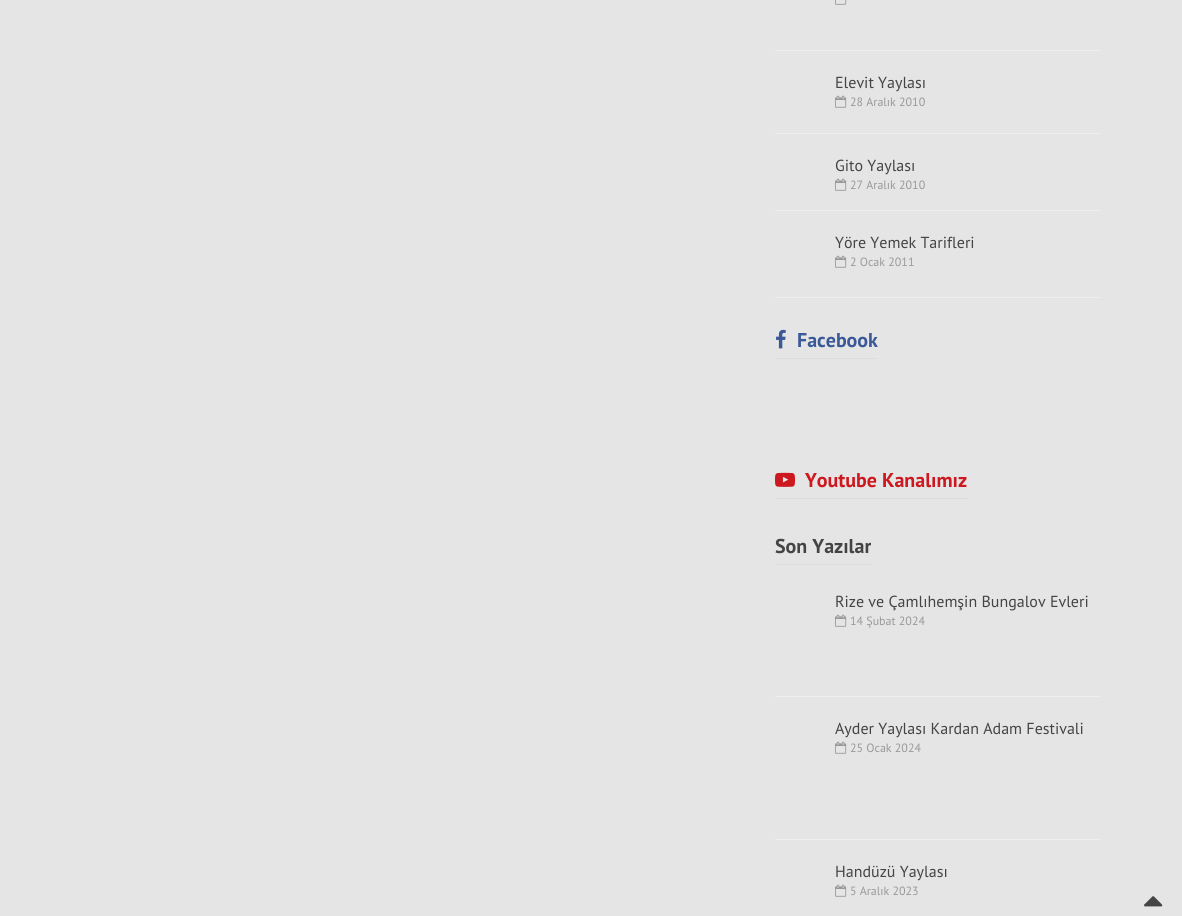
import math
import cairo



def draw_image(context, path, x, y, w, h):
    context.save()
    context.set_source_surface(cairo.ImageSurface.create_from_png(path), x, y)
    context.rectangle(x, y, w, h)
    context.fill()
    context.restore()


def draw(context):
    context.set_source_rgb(229 / 255, 229 / 255, 229 / 255)
    context.paint()
    context.set_source_rgb(238 / 255, 238 / 255, 238 / 255)
    context.rectangle(775, 50, 326, 1)
    context.fill()
    draw_image(context, "images/1.png", 835, 0, 12, 5)
    context.rectangle(775, 133, 326, 1)
    context.fill()
    draw_image(context, "images/2.png", 835, 95, 12, 13)
    context.rectangle(775, 210, 326, 1)
    context.fill()
    draw_image(context, "images/2.png", 835, 178, 12, 13)
    context.rectangle(775, 297, 326, 1)
    context.fill()
    draw_image(context, "images/2.png", 835, 255, 12, 13)
    context.set_source_rgb(221 / 255, 221 / 255, 221 / 255)
    context.rectangle(775, 358, 103, 1)
    context.fill()
    draw_image(context, "images/3.png", 776, 329, 10, 20)
    context.rectangle(775, 498, 193, 1)
    context.fill()
    draw_image(context, "images/4.png", 775, 472, 20, 15)
    context.rectangle(775, 564, 97, 1)
    context.fill()
    context.set_source_rgb(238 / 255, 238 / 255, 238 / 255)
    context.rectangle(775, 696, 326, 1)
    context.fill()
    draw_image(context, "images/2.png", 835, 614, 12, 13)
    context.rectangle(775, 839, 326, 1)
    context.fill()
    draw_image(context, "images/2.png", 835, 741, 12, 13)
    draw_image(context, "images/2.png", 835, 884, 12, 13)
    draw_image(context, "images/5.png", 1144, 896, 19, 11)
    context.select_font_face("PT Sans")
    context.set_font_size(16)
    context.set_source_rgb(68 / 255, 68 / 255, 68 / 255)
    context.move_to(835, 88)
    context.show_text("Elevit Yaylası")
    context.set_font_size(12)
    context.set_source_rgb(153 / 255, 153 / 255, 153 / 255)
    context.move_to(850, 106)
    context.show_text("28 Aralık 2010")
    context.set_font_size(16)
    context.set_source_rgb(68 / 255, 68 / 255, 68 / 255)
    context.move_to(835, 171)
    context.show_text("Gito Yaylası")
    context.set_font_size(12)
    context.set_source_rgb(153 / 255, 153 / 255, 153 / 255)
    context.move_to(850, 189)
    context.show_text("27 Aralık 2010")
    context.set_font_size(16)
    context.set_source_rgb(68 / 255, 68 / 255, 68 / 255)
    context.move_to(835, 248)
    context.show_text("Yöre Yemek Tarifleri")
    context.set_font_size(12)
    context.set_source_rgb(153 / 255, 153 / 255, 153 / 255)
    context.move_to(850, 266)
    context.show_text("2 Ocak 2011")
    context.select_font_face("PT Sans", cairo.FontSlant.NORMAL, cairo.FontWeight.BOLD)
    context.set_font_size(20)
    context.set_source_rgb(59 / 255, 89 / 255, 152 / 255)
    context.move_to(797, 347)
    context.show_text("Facebook")
    context.set_source_rgb(204 / 255, 24 / 255, 30 / 255)
    context.move_to(805, 487)
    context.show_text("Youtube Kanalımız")
    context.set_source_rgb(68 / 255, 68 / 255, 68 / 255)
    context.move_to(775, 553)
    context.show_text("Son Yazılar")
    context.select_font_face("PT Sans")
    context.set_font_size(16)
    context.move_to(835, 607)
    context.show_text("Rize ve Çamlıhemşin Bungalov Evleri")
    context.set_font_size(12)
    context.set_source_rgb(153 / 255, 153 / 255, 153 / 255)
    context.move_to(850, 625)
    context.show_text("14 Şubat 2024")
    context.set_font_size(16)
    context.set_source_rgb(68 / 255, 68 / 255, 68 / 255)
    context.move_to(835, 734)
    context.show_text("Ayder Yaylası Kardan Adam Festivali")
    context.set_font_size(12)
    context.set_source_rgb(153 / 255, 153 / 255, 153 / 255)
    context.move_to(850, 752)
    context.show_text("25 Ocak 2024")
    context.set_font_size(16)
    context.set_source_rgb(68 / 255, 68 / 255, 68 / 255)
    context.move_to(835, 877)
    context.show_text("Handüzü Yaylası")
    context.set_font_size(12)
    context.set_source_rgb(153 / 255, 153 / 255, 153 / 255)
    context.move_to(850, 895)
    context.show_text("5 Aralık 2023")


surface = cairo.ImageSurface(cairo.Format.RGB24, 1182, 916)
context = cairo.Context(surface)
options = cairo.FontOptions()
options.set_hint_metrics(cairo.HintMetrics.OFF)
options.set_hint_style(cairo.HintStyle.NONE)
context.set_font_options(options)
context.set_miter_limit(4)
draw(context)
surface.write_to_png("out.png")
